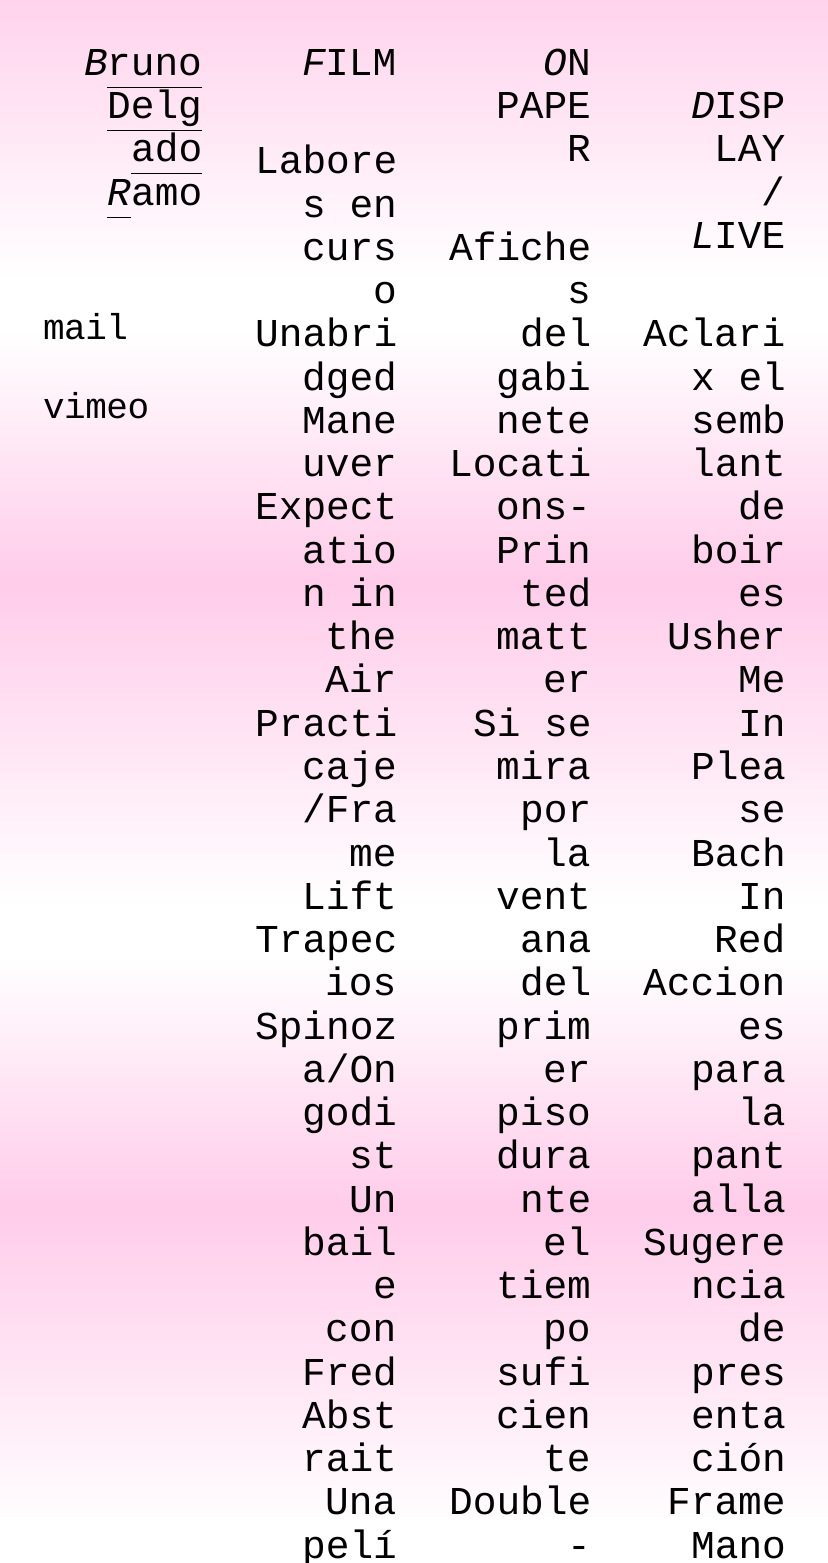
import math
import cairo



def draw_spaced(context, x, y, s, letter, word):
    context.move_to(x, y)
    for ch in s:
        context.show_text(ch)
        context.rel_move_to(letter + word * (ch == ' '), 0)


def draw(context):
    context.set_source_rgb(1, 1, 1)
    context.paint()
    gradient = cairo.LinearGradient(414, -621, 414, 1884)
    gradient.add_color_stop_rgba(0, 1, 204 / 255, 234 / 255, 1)
    gradient.add_color_stop_rgba(0.11, 1, 1, 1, 1)
    gradient.add_color_stop_rgba(0.13, 1, 1, 1, 1)
    gradient.add_color_stop_rgba(0.23, 1, 204 / 255, 234 / 255, 1)
    gradient.add_color_stop_rgba(0.36, 1, 1, 1, 1)
    gradient.add_color_stop_rgba(0.38, 1, 1, 1, 1)
    gradient.add_color_stop_rgba(0.48, 1, 204 / 255, 234 / 255, 1)
    gradient.add_color_stop_rgba(0.61, 1, 1, 1, 1)
    gradient.add_color_stop_rgba(0.63, 1, 1, 1, 1)
    gradient.add_color_stop_rgba(0.73, 1, 204 / 255, 234 / 255, 1)
    gradient.add_color_stop_rgba(0.86, 1, 1, 1, 1)
    gradient.add_color_stop_rgba(0.88, 1, 1, 1, 1)
    gradient.add_color_stop_rgba(0.98, 1, 204 / 255, 234 / 255, 1)
    gradient.add_color_stop_rgba(1, 1, 204 / 255, 234 / 255, 1)
    context.set_source(gradient)
    context.rectangle(0, 0, 828, 1517)
    context.fill()
    context.set_source_rgb(0, 0, 0)
    context.rectangle(107, 87, 95, 1)
    context.fill()
    context.rectangle(107, 130, 95, 1)
    context.fill()
    context.rectangle(131, 173, 71, 1)
    context.fill()
    context.rectangle(107, 217, 24, 1)
    context.fill()
    context.select_font_face("Liberation Mono", cairo.FontSlant.ITALIC)
    context.set_font_size(39.5)
    context.move_to(84, 75)
    context.show_text("B")
    context.select_font_face("Liberation Mono")
    context.move_to(107, 75)
    context.show_text("runo")
    context.move_to(107, 118)
    context.show_text("Delg")
    context.move_to(131, 161)
    context.show_text("ado")
    context.select_font_face("Liberation Mono", cairo.FontSlant.ITALIC)
    context.move_to(107, 205)
    context.show_text("R")
    context.select_font_face("Liberation Mono")
    context.move_to(131, 205)
    context.show_text("amo")
    context.set_font_size(36)
    draw_spaced(context, 43, 339, "mail", -0.5, 0)
    draw_spaced(context, 43, 418, "vimeo", -0.5, 0)
    context.select_font_face("Liberation Mono", cairo.FontSlant.ITALIC)
    context.set_font_size(39.5)
    context.move_to(302, 75)
    context.show_text("F")
    context.select_font_face("Liberation Mono")
    context.move_to(325, 75)
    context.show_text("ILM")
    context.move_to(255, 173)
    context.show_text("Labore")
    context.move_to(302, 217)
    context.show_text("s en")
    context.move_to(302, 260)
    context.show_text("curs")
    context.move_to(373, 303)
    context.show_text("o")
    context.move_to(255, 346)
    context.show_text("Unabri")
    context.move_to(302, 390)
    context.show_text("dged")
    context.move_to(302, 433)
    context.show_text("Mane")
    context.move_to(302, 476)
    context.show_text("uver")
    context.move_to(255, 519)
    context.show_text("Expect")
    context.move_to(302, 563)
    context.show_text("atio")
    context.move_to(302, 606)
    context.show_text("n in")
    context.move_to(325, 649)
    context.show_text("the")
    context.move_to(325, 692)
    context.show_text("Air")
    context.move_to(255, 736)
    context.show_text("Practi")
    context.move_to(302, 779)
    context.show_text("caje")
    context.move_to(302, 822)
    context.show_text("/Fra")
    context.move_to(349, 866)
    context.show_text("me")
    context.move_to(302, 909)
    context.show_text("Lift")
    context.move_to(255, 952)
    context.show_text("Trapec")
    context.move_to(325, 995)
    context.show_text("ios")
    context.move_to(255, 1039)
    context.show_text("Spinoz")
    context.move_to(302, 1082)
    context.show_text("a/On")
    context.move_to(302, 1125)
    context.show_text("godi")
    context.move_to(349, 1168)
    context.show_text("st")
    context.move_to(349, 1212)
    context.show_text("Un")
    context.move_to(302, 1255)
    context.show_text("bail")
    context.move_to(373, 1298)
    context.show_text("e")
    context.move_to(325, 1341)
    context.show_text("con")
    context.move_to(302, 1385)
    context.show_text("Fred")
    context.move_to(302, 1428)
    context.show_text("Abst")
    context.move_to(302, 1471)
    context.show_text("rait")
    context.move_to(325, 1514)
    context.show_text("Una")
    context.move_to(302, 1558)
    context.show_text("pelí")
    context.select_font_face("Liberation Mono", cairo.FontSlant.ITALIC)
    context.move_to(543, 75)
    context.show_text("O")
    context.select_font_face("Liberation Mono")
    context.move_to(567, 75)
    context.show_text("N")
    context.move_to(496, 118)
    context.show_text("PAPE")
    context.move_to(567, 161)
    context.show_text("R")
    context.move_to(449, 260)
    context.show_text("Afiche")
    context.move_to(567, 303)
    context.show_text("s")
    context.move_to(520, 346)
    context.show_text("del")
    context.move_to(496, 390)
    context.show_text("gabi")
    context.move_to(496, 433)
    context.show_text("nete")
    context.move_to(449, 476)
    context.show_text("Locati")
    context.move_to(496, 519)
    context.show_text("ons-")
    context.move_to(496, 563)
    context.show_text("Prin")
    context.move_to(520, 606)
    context.show_text("ted")
    context.move_to(496, 649)
    context.show_text("matt")
    context.move_to(543, 692)
    context.show_text("er")
    context.move_to(473, 736)
    context.show_text("Si se")
    context.move_to(496, 779)
    context.show_text("mira")
    context.move_to(520, 822)
    context.show_text("por")
    context.move_to(543, 866)
    context.show_text("la")
    context.move_to(496, 909)
    context.show_text("vent")
    context.move_to(520, 952)
    context.show_text("ana")
    context.move_to(520, 995)
    context.show_text("del")
    context.move_to(496, 1039)
    context.show_text("prim")
    context.move_to(543, 1082)
    context.show_text("er")
    context.move_to(496, 1125)
    context.show_text("piso")
    context.move_to(496, 1168)
    context.show_text("dura")
    context.move_to(520, 1212)
    context.show_text("nte")
    context.move_to(543, 1255)
    context.show_text("el")
    context.move_to(496, 1298)
    context.show_text("tiem")
    context.move_to(543, 1341)
    context.show_text("po")
    context.move_to(496, 1385)
    context.show_text("sufi")
    context.move_to(496, 1428)
    context.show_text("cien")
    context.move_to(543, 1471)
    context.show_text("te")
    context.move_to(449, 1514)
    context.show_text("Double")
    context.move_to(567, 1558)
    context.show_text("-")
    context.select_font_face("Liberation Mono", cairo.FontSlant.ITALIC)
    context.move_to(691, 118)
    context.show_text("D")
    context.select_font_face("Liberation Mono")
    context.move_to(714, 118)
    context.show_text("ISP")
    context.move_to(714, 161)
    context.show_text("LAY")
    context.move_to(761, 205)
    context.show_text("/")
    context.select_font_face("Liberation Mono", cairo.FontSlant.ITALIC)
    context.move_to(691, 248)
    context.show_text("L")
    context.select_font_face("Liberation Mono")
    context.move_to(714, 248)
    context.show_text("IVE")
    context.move_to(643, 346)
    context.show_text("Aclari")
    context.move_to(691, 390)
    context.show_text("x el")
    context.move_to(691, 433)
    context.show_text("semb")
    context.move_to(691, 476)
    context.show_text("lant")
    context.move_to(738, 519)
    context.show_text("de")
    context.move_to(691, 563)
    context.show_text("boir")
    context.move_to(738, 606)
    context.show_text("es")
    context.move_to(667, 649)
    context.show_text("Usher")
    context.move_to(738, 692)
    context.show_text("Me")
    context.move_to(738, 736)
    context.show_text("In")
    context.move_to(691, 779)
    context.show_text("Plea")
    context.move_to(738, 822)
    context.show_text("se")
    context.move_to(691, 866)
    context.show_text("Bach")
    context.move_to(738, 909)
    context.show_text("In")
    context.move_to(714, 952)
    context.show_text("Red")
    context.move_to(643, 995)
    context.show_text("Accion")
    context.move_to(738, 1039)
    context.show_text("es")
    context.move_to(691, 1082)
    context.show_text("para")
    context.move_to(738, 1125)
    context.show_text("la")
    context.move_to(691, 1168)
    context.show_text("pant")
    context.move_to(691, 1212)
    context.show_text("alla")
    context.move_to(643, 1255)
    context.show_text("Sugere")
    context.move_to(691, 1298)
    context.show_text("ncia")
    context.move_to(738, 1341)
    context.show_text("de")
    context.move_to(691, 1385)
    context.show_text("pres")
    context.move_to(691, 1428)
    context.show_text("enta")
    context.move_to(691, 1471)
    context.show_text("ción")
    context.move_to(667, 1514)
    context.show_text("Frame")
    context.move_to(691, 1558)
    context.show_text("Mano")


surface = cairo.ImageSurface(cairo.Format.RGB24, 828, 1563)
context = cairo.Context(surface)
options = cairo.FontOptions()
options.set_hint_metrics(cairo.HintMetrics.OFF)
options.set_hint_style(cairo.HintStyle.NONE)
context.set_font_options(options)
context.set_miter_limit(4)
draw(context)
surface.write_to_png("out.png")
